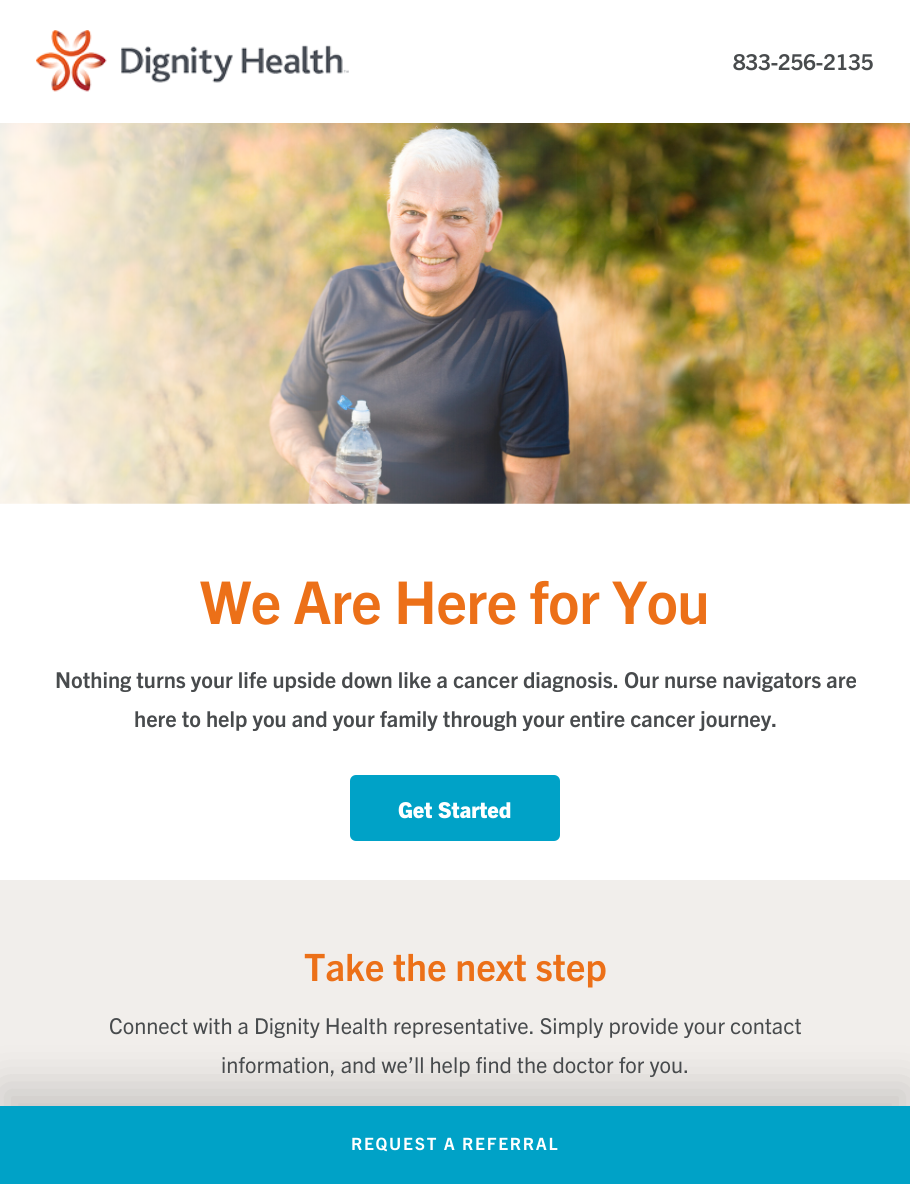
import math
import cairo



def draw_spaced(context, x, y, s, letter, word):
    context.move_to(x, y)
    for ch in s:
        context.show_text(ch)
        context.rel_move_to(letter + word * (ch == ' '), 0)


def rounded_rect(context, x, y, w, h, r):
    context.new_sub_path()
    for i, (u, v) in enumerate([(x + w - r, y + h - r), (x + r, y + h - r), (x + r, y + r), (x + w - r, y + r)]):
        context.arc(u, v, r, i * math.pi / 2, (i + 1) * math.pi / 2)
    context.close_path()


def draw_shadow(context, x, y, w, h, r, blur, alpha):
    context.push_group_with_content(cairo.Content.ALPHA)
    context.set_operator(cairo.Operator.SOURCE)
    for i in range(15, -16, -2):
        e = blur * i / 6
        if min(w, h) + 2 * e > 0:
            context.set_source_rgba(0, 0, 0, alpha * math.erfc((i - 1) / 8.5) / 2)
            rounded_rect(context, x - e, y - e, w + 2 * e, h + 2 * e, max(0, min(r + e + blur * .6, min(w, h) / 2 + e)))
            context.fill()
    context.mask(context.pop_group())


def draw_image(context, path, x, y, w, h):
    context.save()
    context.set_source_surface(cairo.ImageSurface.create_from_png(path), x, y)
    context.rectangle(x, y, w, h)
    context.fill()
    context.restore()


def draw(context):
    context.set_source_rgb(1, 1, 1)
    context.paint()
    draw_image(context, "images/1.png", 36, 30, 313, 62)
    context.set_source_rgb(241 / 255, 238 / 255, 235 / 255)
    context.rectangle(0, 880, 910, 226)
    context.fill()
    context.set_source_rgb(0, 0, 0)
    draw_shadow(context, 0, 1085, 910, 79, 0, 22, 0.16)
    context.set_source_rgb(0, 162 / 255, 199 / 255)
    context.rectangle(0, 1106, 910, 78)
    context.fill()
    draw_image(context, "images/2.png", 0, 123, 910, 381)
    gradient = cairo.LinearGradient(0, 313, 591, 313)
    gradient.add_color_stop_rgba(0, 1, 1, 1, 0.9)
    gradient.add_color_stop_rgba(1, 1, 1, 1, 0)
    context.set_source(gradient)
    context.rectangle(0, 123, 577, 381)
    context.fill()
    context.set_source_rgb(0, 162 / 255, 199 / 255)
    rounded_rect(context, 350, 775, 210, 66, 6)
    context.fill()
    context.select_font_face("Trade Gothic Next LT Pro", cairo.FontSlant.NORMAL, cairo.FontWeight.BOLD)
    context.set_font_size(21.9)
    context.set_source_rgb(72 / 255, 75 / 255, 77 / 255)
    context.move_to(733, 70)
    context.show_text("833-256-2135")
    context.set_font_size(17)
    context.set_source_rgb(1, 1, 1)
    draw_spaced(context, 351, 1150, "REQUEST A REFERRAL", 1.75, 0)
    context.set_font_size(59.1)
    context.set_source_rgb(236 / 255, 112 / 255, 24 / 255)
    draw_spaced(context, 200, 624, "We Are Here for You", -0.7, 0)
    context.set_font_size(21.9)
    context.set_source_rgb(72 / 255, 75 / 255, 77 / 255)
    context.move_to(55, 688)
    context.show_text("Nothing turns your life upside down like a cancer diagnosis. Our nurse navigators are")
    context.move_to(134, 727)
    context.show_text("here to help you and your family through your entire cancer journey.")
    context.select_font_face("Trade Gothic Next LT Pro ExtraBold")
    context.set_source_rgb(1, 1, 1)
    context.move_to(398, 818)
    context.show_text("Get Started")
    context.select_font_face("Trade Gothic Next LT Pro", cairo.FontSlant.NORMAL, cairo.FontWeight.BOLD)
    context.set_font_size(37.75)
    context.set_source_rgb(236 / 255, 112 / 255, 24 / 255)
    context.move_to(304, 981)
    context.show_text("Take the next step")
    context.select_font_face("Trade Gothic Next LT Pro")
    context.set_font_size(21.9)
    context.set_source_rgb(72 / 255, 75 / 255, 77 / 255)
    context.move_to(109, 1034)
    context.show_text("Connect with a Dignity Health representative. Simply provide your contact")
    context.move_to(221, 1073)
    context.show_text("information, and we’ll help find the doctor for you.")


surface = cairo.ImageSurface(cairo.Format.RGB24, 910, 1184)
context = cairo.Context(surface)
options = cairo.FontOptions()
options.set_hint_metrics(cairo.HintMetrics.OFF)
options.set_hint_style(cairo.HintStyle.NONE)
context.set_font_options(options)
context.set_miter_limit(4)
draw(context)
surface.write_to_png("out.png")
